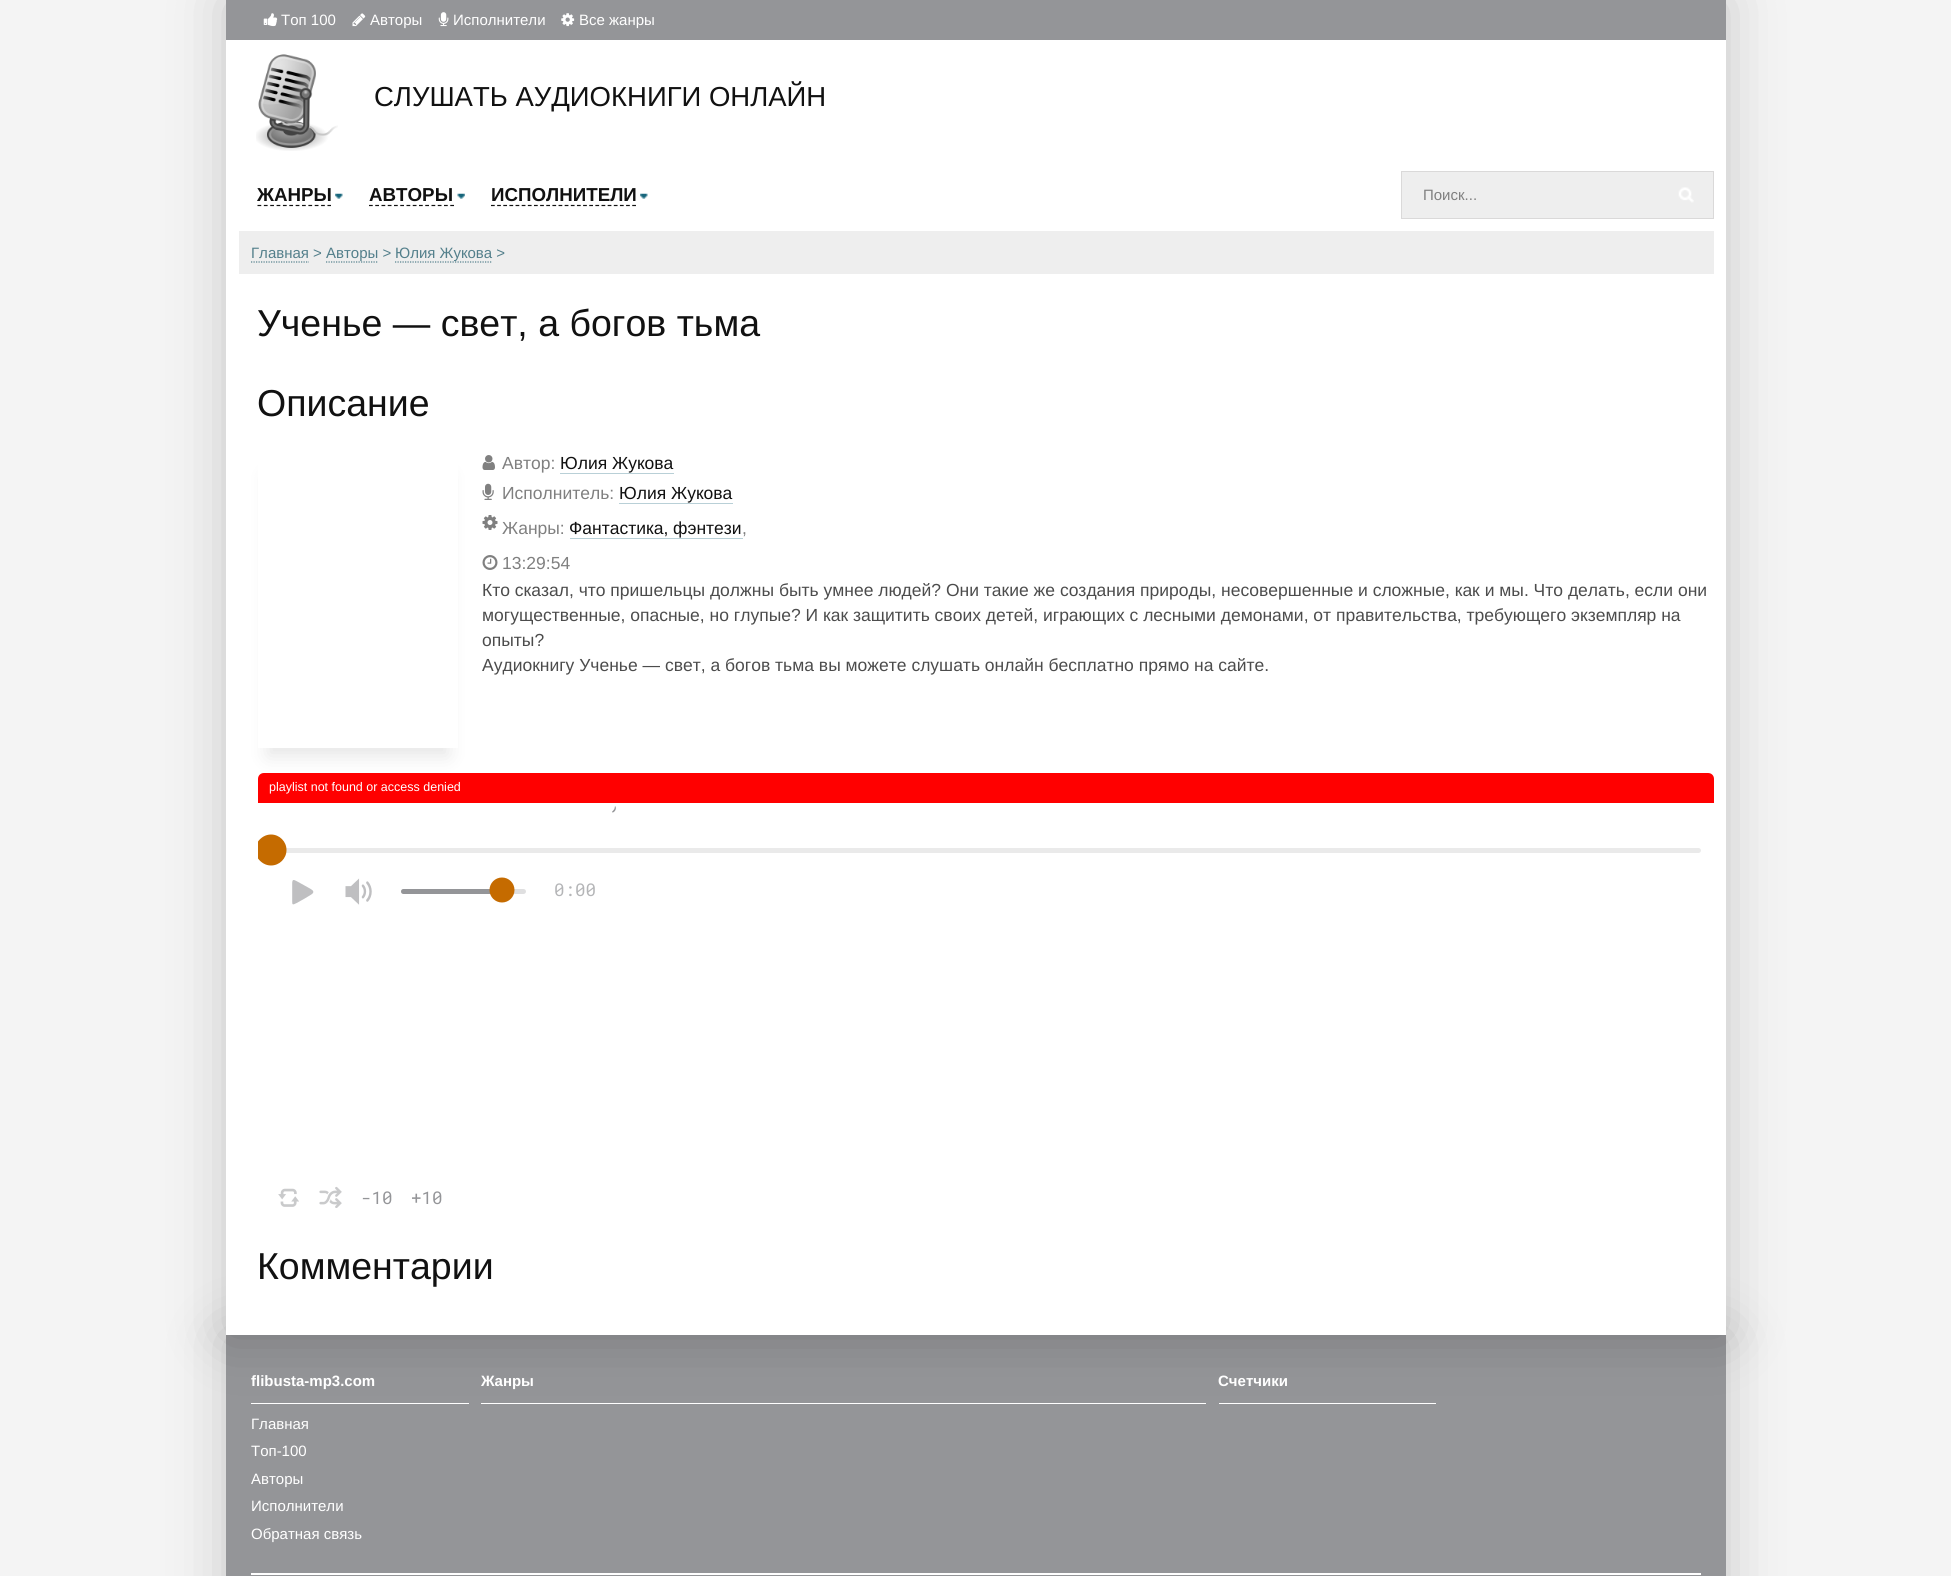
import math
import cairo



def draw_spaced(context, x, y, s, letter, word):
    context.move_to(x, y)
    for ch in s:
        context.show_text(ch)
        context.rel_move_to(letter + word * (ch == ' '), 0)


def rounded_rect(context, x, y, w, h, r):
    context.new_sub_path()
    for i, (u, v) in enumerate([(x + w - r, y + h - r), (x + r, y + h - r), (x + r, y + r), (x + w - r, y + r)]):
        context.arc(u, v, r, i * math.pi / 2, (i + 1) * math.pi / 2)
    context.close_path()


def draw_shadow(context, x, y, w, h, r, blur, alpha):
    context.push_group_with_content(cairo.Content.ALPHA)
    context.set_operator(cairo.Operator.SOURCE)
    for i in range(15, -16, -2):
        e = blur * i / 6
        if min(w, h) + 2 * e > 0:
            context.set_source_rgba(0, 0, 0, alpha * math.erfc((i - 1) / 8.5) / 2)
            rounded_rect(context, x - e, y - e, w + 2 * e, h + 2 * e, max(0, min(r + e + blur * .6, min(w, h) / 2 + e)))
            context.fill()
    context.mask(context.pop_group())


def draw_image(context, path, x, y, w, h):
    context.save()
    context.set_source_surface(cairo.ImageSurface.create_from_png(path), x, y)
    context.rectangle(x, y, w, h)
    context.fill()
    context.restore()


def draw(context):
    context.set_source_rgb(244 / 255, 244 / 255, 244 / 255)
    context.paint()
    context.set_source_rgb(148 / 255, 149 / 255, 152 / 255)
    context.rectangle(226, 1335, 1500, 241)
    context.fill()
    context.save()
    context.set_fill_rule(cairo.FillRule.EVEN_ODD)
    context.new_path()
    context.move_to(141, 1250)
    context.line_to(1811, 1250)
    context.line_to(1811, 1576)
    context.line_to(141, 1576)
    context.close_path()
    context.move_to(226, 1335)
    context.line_to(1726, 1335)
    context.line_to(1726, 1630)
    context.line_to(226, 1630)
    context.close_path()
    context.clip()
    context.set_source_rgb(0, 0, 0)
    draw_shadow(context, 226, 1335, 1500, 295, 0, 28, 0.2)
    context.restore()
    context.set_source_rgb(1, 1, 1)
    context.rectangle(251, 1403, 218, 1)
    context.fill()
    context.rectangle(481, 1403, 725, 1)
    context.fill()
    context.rectangle(1219, 1403, 217, 1)
    context.fill()
    context.set_source_rgb(0, 0, 0)
    draw_shadow(context, 226, 0, 1500, 1335, 0, 28, 0.2)
    context.set_source_rgb(1, 1, 1)
    context.rectangle(226, 40, 1500, 1295)
    context.fill()
    context.set_source_rgb(148 / 255, 149 / 255, 152 / 255)
    context.rectangle(226, 0, 1500, 40)
    context.fill()
    draw_image(context, "images/1.png", 263, 13, 15, 14)
    draw_image(context, "images/2.png", 352, 13, 14, 14)
    draw_image(context, "images/3.png", 438, 12, 11, 15)
    draw_image(context, "images/4.png", 561, 13, 14, 14)
    draw_image(context, "images/5.png", 256, 54, 82, 97)
    context.new_path()
    context.move_to(257.5, 205.5)
    context.line_to(331, 205.5)
    context.set_source_rgb(17 / 255, 17 / 255, 17 / 255)
    context.set_line_width(1.2)
    context.set_dash([3.75, 2.61])
    context.stroke()
    draw_image(context, "images/6.png", 335, 193, 8, 6)
    context.new_path()
    context.move_to(369, 205.5)
    context.line_to(454, 205.5)
    context.set_dash([3.75, 2.5])
    context.stroke()
    draw_image(context, "images/7.png", 457, 193, 8, 6)
    context.new_path()
    context.move_to(491, 205.5)
    context.line_to(636, 205.5)
    context.set_dash([3.75, 2.39])
    context.stroke()
    draw_image(context, "images/6.png", 640, 193, 8, 6)
    context.set_source_rgb(238 / 255, 238 / 255, 238 / 255)
    context.rectangle(1401.5, 171.5, 312, 47)
    context.fill_preserve()
    context.set_source_rgb(218 / 255, 217 / 255, 217 / 255)
    context.set_line_width(1)
    context.set_dash([])
    context.stroke()
    draw_image(context, "images/8.png", 1678, 187, 16, 16)
    context.set_source_rgb(238 / 255, 238 / 255, 238 / 255)
    context.rectangle(239, 231, 1475, 43)
    context.fill()
    context.new_path()
    context.move_to(251, 262)
    context.line_to(309, 262)
    context.set_source_rgb(83 / 255, 127 / 255, 139 / 255)
    context.set_line_width(1.2)
    context.set_dash([1.25, 1.25])
    context.stroke()
    context.new_path()
    context.move_to(326, 262)
    context.line_to(377.5, 262)
    context.stroke()
    context.new_path()
    context.move_to(395, 262)
    context.line_to(492.5, 262)
    context.stroke()
    context.save()
    context.set_fill_rule(cairo.FillRule.EVEN_ODD)
    context.new_path()
    context.move_to(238, 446)
    context.line_to(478, 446)
    context.line_to(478, 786)
    context.line_to(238, 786)
    context.close_path()
    context.move_to(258, 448)
    context.line_to(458, 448)
    context.line_to(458, 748)
    context.line_to(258, 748)
    context.close_path()
    context.clip()
    context.set_source_rgb(0, 0, 0)
    draw_shadow(context, 268, 476, 180, 280, 0, 9.5, 0.1)
    context.restore()
    draw_image(context, "images/9.png", 482, 455, 13, 15)
    context.set_source_rgb(185 / 255, 208 / 255, 215 / 255)
    context.rectangle(560, 473, 114, 1)
    context.fill()
    draw_image(context, "images/10.png", 482, 483, 12, 17)
    context.rectangle(619, 503, 114, 1)
    context.fill()
    draw_image(context, "images/11.png", 482, 515, 16, 15)
    context.rectangle(570, 538, 173, 1)
    context.fill()
    draw_image(context, "images/12.png", 482, 555, 16, 15)
    context.set_source_rgb(1, 0, 0)
    context.new_path()
    context.move_to(264, 773)
    context.line_to(1708, 773)
    context.curve_to(1711.5, 773, 1714, 775.5, 1714, 779)
    context.line_to(1714, 803)
    context.line_to(258, 803)
    context.line_to(258, 779)
    context.curve_to(258, 775.5, 260.5, 773, 264, 773)
    context.close_path()
    context.fill()
    context.set_source_rgb(234 / 255, 234 / 255, 234 / 255)
    rounded_rect(context, 270, 848, 1431, 5, 2.5)
    context.fill()
    context.set_source_rgb(197 / 255, 107 / 255, 0)
    context.new_path()
    context.move_to(271, 834.5)
    context.curve_to(279.5, 834.5, 286.5, 841.5, 286.5, 850)
    context.curve_to(286.5, 858.5, 279.5, 865.5, 271, 865.5)
    context.curve_to(265.5, 865.5, 261, 862.5, 258, 858.5)
    context.line_to(258, 841.5)
    context.curve_to(261, 837.5, 265.5, 834.5, 271, 834.5)
    context.close_path()
    context.fill()
    draw_image(context, "images/13.png", 292, 880, 22, 25)
    draw_image(context, "images/14.png", 345, 878, 27, 27)
    context.set_source_rgb(223 / 255, 223 / 255, 224 / 255)
    rounded_rect(context, 401, 889, 125, 5, 2.5)
    context.fill()
    context.set_source_rgb(148 / 255, 149 / 255, 152 / 255)
    rounded_rect(context, 401, 889, 100, 5, 2.5)
    context.fill()
    context.set_source_rgb(197 / 255, 107 / 255, 0)
    context.arc(502, 890, 12.5, 0, 2 * math.pi)
    context.fill()
    draw_image(context, "images/15.png", 278, 1188, 21, 19)
    draw_image(context, "images/16.png", 319, 1186, 23, 22)
    context.set_source_rgb(1, 1, 1)
    context.rectangle(251, 1573, 1450, 2)
    context.fill()
    context.select_font_face("Liberation Sans")
    context.set_font_size(15)
    context.move_to(281, 25)
    context.show_text("Топ 100")
    context.move_to(370, 25)
    context.show_text("Авторы")
    context.move_to(453, 25)
    context.show_text("Исполнители")
    context.move_to(579, 25)
    context.show_text("Все жанры")
    context.set_font_size(27.5)
    context.set_source_rgb(17 / 255, 17 / 255, 17 / 255)
    context.move_to(374, 106)
    context.show_text("СЛУШАТЬ АУДИОКНИГИ ОНЛАЙН")
    context.select_font_face("Liberation Sans", cairo.FontSlant.NORMAL, cairo.FontWeight.BOLD)
    context.set_font_size(18.75)
    context.move_to(257, 201)
    context.show_text("ЖАНРЫ")
    context.move_to(369, 201)
    context.show_text("АВТОРЫ")
    context.move_to(491, 201)
    context.show_text("ИСПОЛНИТЕЛИ")
    context.select_font_face("Liberation Sans")
    context.set_font_size(15)
    context.set_source_rgb(128 / 255, 128 / 255, 128 / 255)
    context.move_to(1423, 200)
    context.show_text("Поиск...")
    context.set_source_rgb(83 / 255, 127 / 255, 139 / 255)
    context.move_to(251, 258)
    context.show_text("Главная >")
    context.move_to(326, 258)
    context.show_text("Авторы >")
    context.move_to(395, 258)
    context.show_text("Юлия Жукова >")
    context.set_font_size(37.5)
    context.set_source_rgb(17 / 255, 17 / 255, 17 / 255)
    context.move_to(257, 336)
    context.show_text("Ученье — свет, а богов тьма")
    context.move_to(257, 416)
    context.show_text("Описание")
    context.set_font_size(17.5)
    context.set_source_rgb(128 / 255, 128 / 255, 128 / 255)
    context.move_to(502, 469)
    context.show_text("Автор:")
    context.set_source_rgb(17 / 255, 17 / 255, 17 / 255)
    context.move_to(560, 469)
    context.show_text("Юлия Жукова")
    context.set_source_rgb(128 / 255, 128 / 255, 128 / 255)
    context.move_to(502, 499)
    context.show_text("Исполнитель:")
    context.set_source_rgb(17 / 255, 17 / 255, 17 / 255)
    context.move_to(619, 499)
    context.show_text("Юлия Жукова")
    context.set_source_rgb(128 / 255, 128 / 255, 128 / 255)
    context.move_to(502, 534)
    context.show_text("Жанры:")
    context.set_source_rgb(17 / 255, 17 / 255, 17 / 255)
    context.move_to(569, 534)
    context.show_text("Фантастика, фэнтези")
    context.set_source_rgb(128 / 255, 128 / 255, 128 / 255)
    context.move_to(742, 534)
    context.show_text(",")
    context.move_to(502, 569)
    context.show_text("13:29:54")
    context.set_source_rgb(76 / 255, 76 / 255, 76 / 255)
    context.move_to(482, 596)
    context.show_text("Кто сказал, что пришельцы должны быть умнее людей? Они такие же создания природы, несовершенные и сложные, как и мы. Что делать, если они")
    context.move_to(482, 621)
    context.show_text("могущественные, опасные, но глупые? И как защитить своих детей, играющих с лесными демонами, от правительства, требующего экземпляр на")
    context.move_to(482, 646)
    context.show_text("опыты?")
    context.move_to(482, 671)
    context.show_text("Аудиокнигу Ученье — свет, а богов тьма вы можете слушать онлайн бесплатно прямо на сайте.")
    context.set_font_size(12.5)
    context.set_source_rgb(1, 1, 1)
    context.move_to(269, 791)
    context.show_text("playlist not found or access denied")
    context.select_font_face("Caveat")
    context.set_font_size(30)
    context.set_source_rgb(148 / 255, 149 / 255, 152 / 255)
    draw_spaced(context, 611, 810, ",", 1, 1)
    context.select_font_face("Roboto Mono")
    context.set_font_size(17.5)
    context.set_source_rgb(180 / 255, 181 / 255, 183 / 255)
    context.move_to(554, 896)
    context.show_text("0:00")
    context.set_source_rgb(148 / 255, 149 / 255, 152 / 255)
    context.move_to(361, 1204)
    context.show_text("-10")
    context.move_to(411, 1204)
    context.show_text("+10")
    context.select_font_face("Liberation Sans")
    context.set_font_size(37.5)
    context.set_source_rgb(17 / 255, 17 / 255, 17 / 255)
    context.move_to(257, 1279)
    context.show_text("Комментарии")
    context.select_font_face("Liberation Sans", cairo.FontSlant.NORMAL, cairo.FontWeight.BOLD)
    context.set_font_size(15)
    context.set_source_rgb(1, 1, 1)
    context.move_to(251, 1386)
    context.show_text("flibusta-mp3.com")
    context.select_font_face("Liberation Sans")
    context.move_to(251, 1429)
    context.show_text("Главная")
    context.move_to(251, 1456)
    context.show_text("Топ-100")
    context.move_to(251, 1484)
    context.show_text("Авторы")
    context.move_to(251, 1511)
    context.show_text("Исполнители")
    context.move_to(251, 1539)
    context.show_text("Обратная связь")
    context.select_font_face("Liberation Sans", cairo.FontSlant.NORMAL, cairo.FontWeight.BOLD)
    context.move_to(481, 1386)
    context.show_text("Жанры")
    context.move_to(1218, 1386)
    context.show_text("Счетчики")


surface = cairo.ImageSurface(cairo.Format.RGB24, 1951, 1576)
context = cairo.Context(surface)
options = cairo.FontOptions()
options.set_hint_metrics(cairo.HintMetrics.OFF)
options.set_hint_style(cairo.HintStyle.NONE)
context.set_font_options(options)
context.set_miter_limit(4)
draw(context)
surface.write_to_png("out.png")
